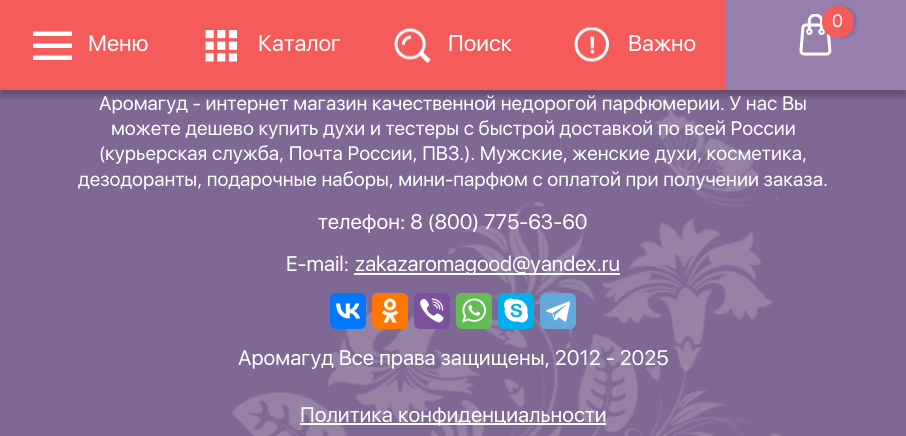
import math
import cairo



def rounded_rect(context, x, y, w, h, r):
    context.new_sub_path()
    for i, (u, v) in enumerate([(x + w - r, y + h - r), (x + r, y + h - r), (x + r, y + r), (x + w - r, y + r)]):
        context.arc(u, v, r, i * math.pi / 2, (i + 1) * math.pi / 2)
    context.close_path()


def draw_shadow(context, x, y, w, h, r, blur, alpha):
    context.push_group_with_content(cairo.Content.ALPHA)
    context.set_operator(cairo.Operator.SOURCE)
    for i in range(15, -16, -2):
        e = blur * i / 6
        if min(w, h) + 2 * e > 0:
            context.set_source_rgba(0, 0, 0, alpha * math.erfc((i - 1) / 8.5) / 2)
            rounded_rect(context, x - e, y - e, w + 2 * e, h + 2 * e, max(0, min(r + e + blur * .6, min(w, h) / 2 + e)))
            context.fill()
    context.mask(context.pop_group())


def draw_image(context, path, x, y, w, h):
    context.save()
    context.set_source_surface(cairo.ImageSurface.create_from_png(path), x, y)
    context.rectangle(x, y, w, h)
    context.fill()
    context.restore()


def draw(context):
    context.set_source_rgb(128 / 255, 104 / 255, 148 / 255)
    context.paint()
    draw_image(context, "images/5.png", 231, 95, 565, 341)
    context.set_source_rgb(0, 0, 0)
    draw_shadow(context, 0, 6, 906, 90, 0, 3, 0.25)
    context.set_source_rgb(245 / 255, 91 / 255, 91 / 255)
    context.rectangle(0, 0, 725, 90)
    context.fill()
    context.set_source_rgb(151 / 255, 126 / 255, 172 / 255)
    context.rectangle(725, 0, 181, 90)
    context.fill()
    draw_image(context, "images/1.png", 799, 14, 33, 42)
    context.set_source_rgb(0, 0, 0)
    draw_shadow(context, 825, 6, 32, 32, 16, 1.5, 0.13)
    context.set_source_rgb(245 / 255, 91 / 255, 91 / 255)
    context.arc(838, 22, 16, 0, 2 * math.pi)
    context.fill()
    context.set_source_rgb(1, 1, 1)
    context.new_path()
    context.move_to(33, 31.5)
    context.line_to(72, 31.5)
    context.line_to(72, 36)
    context.line_to(33, 36)
    context.close_path()
    context.move_to(33, 43.5)
    context.line_to(72, 43.5)
    context.line_to(72, 48)
    context.line_to(33, 48)
    context.close_path()
    context.move_to(33, 55.5)
    context.line_to(72, 55.5)
    context.line_to(72, 60)
    context.line_to(33, 60)
    context.close_path()
    context.fill()
    draw_image(context, "images/2.png", 205, 30, 32, 32)
    draw_image(context, "images/3.png", 394, 28, 37, 36)
    draw_image(context, "images/4.png", 574, 27, 35, 35)
    context.rectangle(354, 273, 266, 2)
    context.fill()
    context.set_source_rgb(0, 119 / 255, 1)
    rounded_rect(context, 330, 293, 36, 36, 6)
    context.fill()
    draw_image(context, "images/6.png", 336, 303, 24, 16)
    context.set_source_rgb(1, 119 / 255, 0)
    rounded_rect(context, 372, 293, 36, 36, 6)
    context.fill()
    draw_image(context, "images/7.png", 382, 298, 16, 25)
    context.set_source_rgb(123 / 255, 81 / 255, 157 / 255)
    rounded_rect(context, 414, 293, 36, 36, 6)
    context.fill()
    draw_image(context, "images/8.png", 420, 298, 24, 25)
    context.set_source_rgb(101 / 255, 188 / 255, 84 / 255)
    rounded_rect(context, 456, 293, 36, 36, 6)
    context.fill()
    draw_image(context, "images/9.png", 462, 298, 24, 25)
    context.set_source_rgb(0, 175 / 255, 240 / 255)
    rounded_rect(context, 498, 293, 36, 36, 6)
    context.fill()
    draw_image(context, "images/10.png", 504, 298, 24, 25)
    context.set_source_rgb(100 / 255, 169 / 255, 220 / 255)
    rounded_rect(context, 540, 293, 36, 36, 6)
    context.fill()
    draw_image(context, "images/11.png", 546, 301, 24, 21)
    context.set_source_rgb(1, 1, 1)
    context.rectangle(300, 423, 306, 2)
    context.fill()
    context.select_font_face("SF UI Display")
    context.set_font_size(18)
    context.move_to(832, 27)
    context.show_text("0")
    context.set_font_size(22.5)
    context.move_to(88, 51)
    context.show_text("Меню")
    context.move_to(258, 51)
    context.show_text("Каталог")
    context.move_to(448, 51)
    context.show_text("Поиск")
    context.move_to(628, 51)
    context.show_text("Важно")
    context.set_font_size(19.5)
    context.move_to(99, 110)
    context.show_text("Аромагуд - интернет магазин качественной недорогой парфюмерии. У нас Вы")
    context.move_to(111, 135)
    context.show_text("можете дешево купить духи и тестеры с быстрой доставкой по всей России")
    context.move_to(99, 160)
    context.show_text("(курьерская служба, Почта России, ПВЗ.). Мужские, женские духи, косметика,")
    context.move_to(78, 186)
    context.show_text("дезодоранты, подарочные наборы, мини-парфюм с оплатой при получении заказа.")
    context.set_font_size(21)
    context.move_to(318, 229)
    context.show_text("телефон: 8 (800) 775-63-60")
    context.move_to(286, 271)
    context.show_text("E-mail:")
    context.move_to(355, 271)
    context.show_text("zakazaromagood@yandex.ru")
    context.move_to(238, 365)
    context.show_text("Аромагуд Все права защищены, 2012 - 2025")
    context.move_to(300, 422)
    context.show_text("Политика конфиденциальности")


surface = cairo.ImageSurface(cairo.Format.RGB24, 906, 436)
context = cairo.Context(surface)
options = cairo.FontOptions()
options.set_hint_metrics(cairo.HintMetrics.OFF)
options.set_hint_style(cairo.HintStyle.NONE)
context.set_font_options(options)
context.set_miter_limit(4)
draw(context)
surface.write_to_png("out.png")
